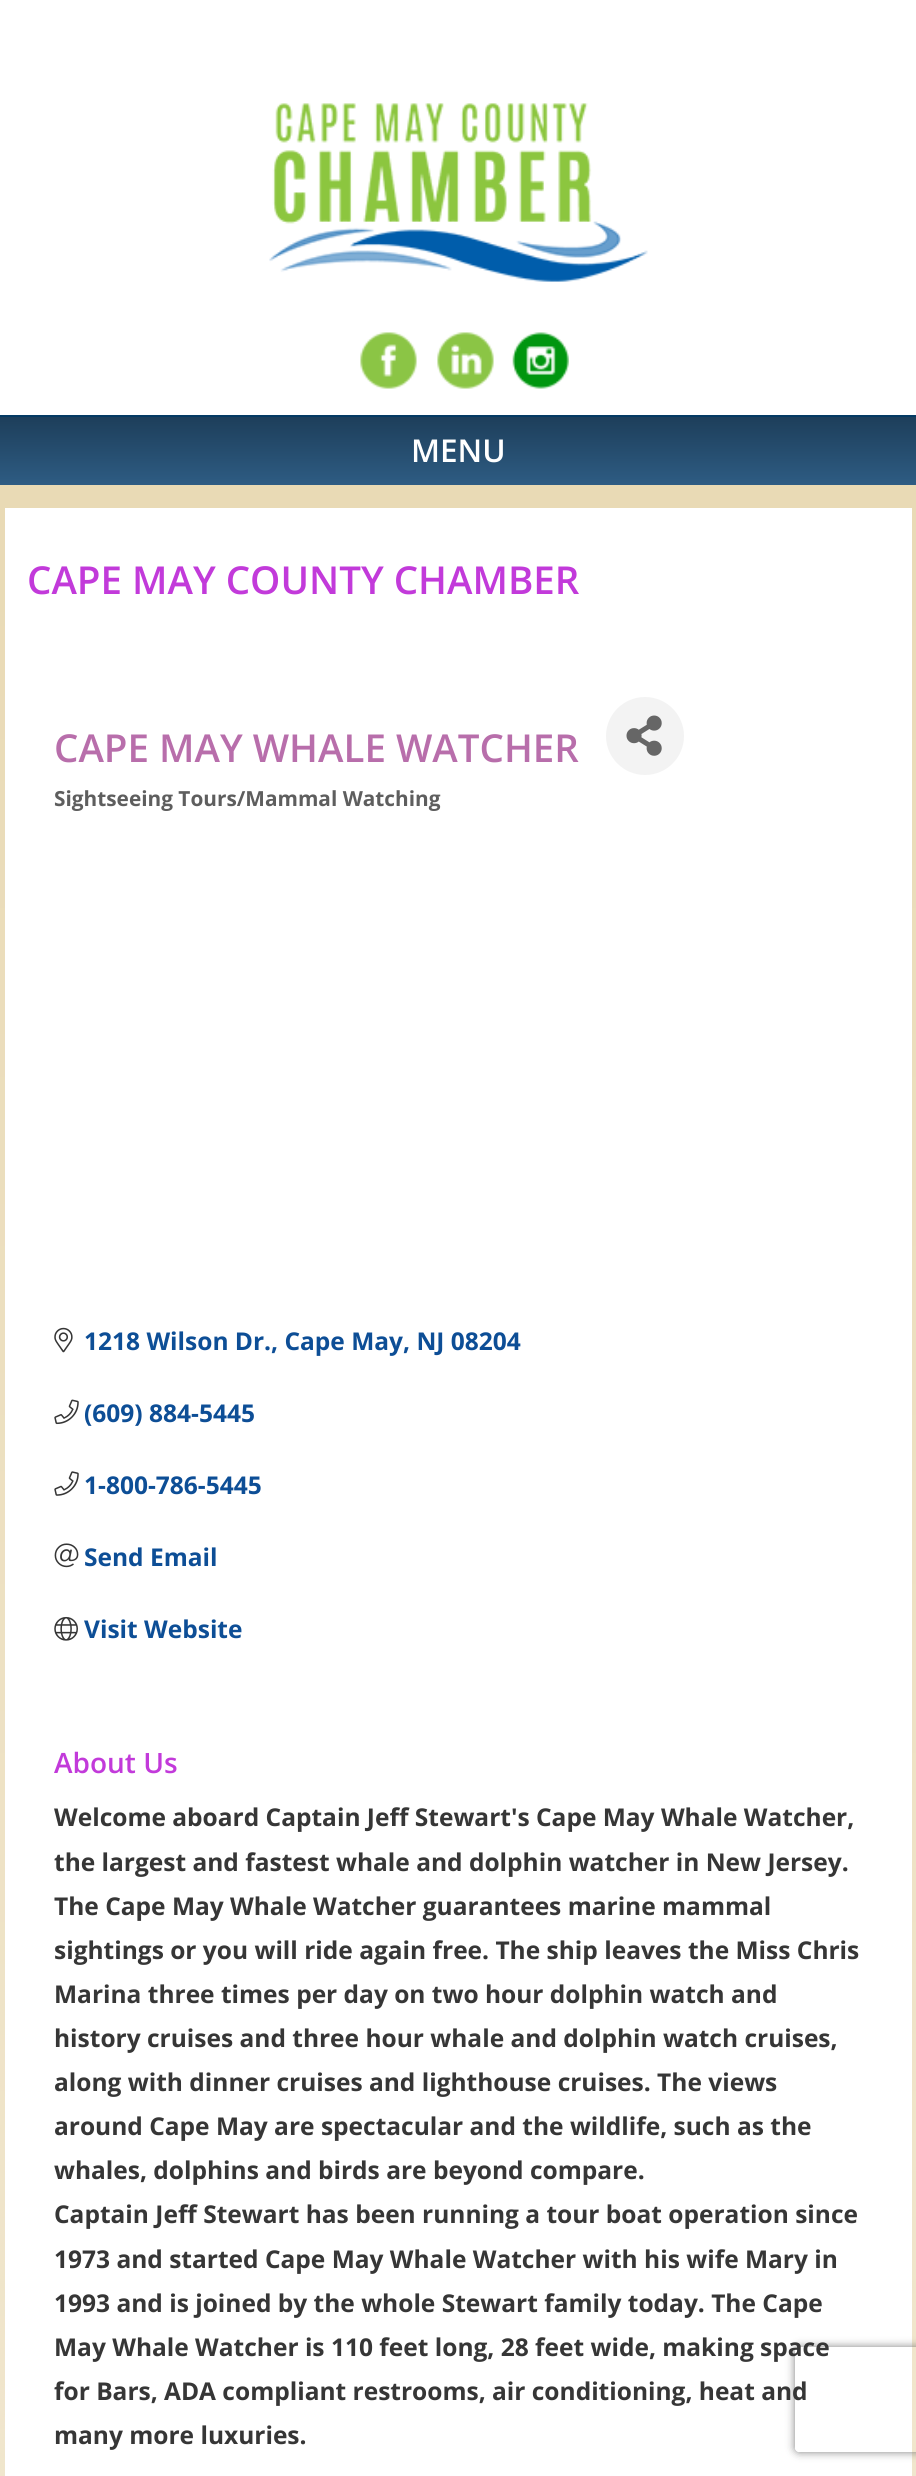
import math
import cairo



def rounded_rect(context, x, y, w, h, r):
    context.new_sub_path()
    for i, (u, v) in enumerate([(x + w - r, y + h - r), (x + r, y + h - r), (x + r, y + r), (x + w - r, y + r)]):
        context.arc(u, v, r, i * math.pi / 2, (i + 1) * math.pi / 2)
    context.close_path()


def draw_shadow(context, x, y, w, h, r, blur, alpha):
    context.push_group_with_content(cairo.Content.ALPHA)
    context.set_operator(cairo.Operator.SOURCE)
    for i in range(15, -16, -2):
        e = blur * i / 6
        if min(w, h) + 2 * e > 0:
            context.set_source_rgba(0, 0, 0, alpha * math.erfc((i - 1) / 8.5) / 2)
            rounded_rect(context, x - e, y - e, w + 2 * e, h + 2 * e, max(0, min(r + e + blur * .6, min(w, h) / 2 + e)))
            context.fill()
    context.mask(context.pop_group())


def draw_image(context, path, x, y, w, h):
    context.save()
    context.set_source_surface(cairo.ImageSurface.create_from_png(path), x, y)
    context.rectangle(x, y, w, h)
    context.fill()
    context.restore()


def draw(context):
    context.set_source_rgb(1, 1, 1)
    context.paint()
    draw_image(context, "images/1.png", 269, 103, 379, 179)
    draw_image(context, "images/2.png", 360, 332, 57, 57)
    draw_image(context, "images/3.png", 437, 332, 57, 57)
    draw_image(context, "images/4.png", 512, 332, 57, 57)
    gradient = cairo.LinearGradient(459, 416, 459, 485)
    gradient.add_color_stop_rgba(0, 29 / 255, 62 / 255, 90 / 255, 1)
    gradient.add_color_stop_rgba(1, 46 / 255, 92 / 255, 131 / 255, 1)
    context.set_source(gradient)
    context.rectangle(0, 417, 916, 68)
    context.fill()
    context.set_source_rgb(4 / 255, 58 / 255, 99 / 255)
    context.rectangle(0, 415, 916, 2)
    context.fill()
    gradient = cairo.LinearGradient(458, 485, 459, 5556)
    gradient.add_color_stop_rgba(0, 233 / 255, 218 / 255, 181 / 255, 1)
    gradient.add_color_stop_rgba(1, 251 / 255, 248 / 255, 241 / 255, 1)
    context.set_source(gradient)
    context.rectangle(0, 485, 916, 1991)
    context.fill()
    context.set_source_rgb(1, 1, 1)
    context.rectangle(5, 508, 907, 1968)
    context.fill()
    context.set_source_rgb(243 / 255, 243 / 255, 243 / 255)
    context.arc(645, 736, 39, 0, 2 * math.pi)
    context.fill()
    draw_image(context, "images/5.png", 626, 715, 36, 41)
    draw_image(context, "images/6.png", 54, 1327, 19, 26)
    draw_image(context, "images/7.png", 54, 1399, 25, 26)
    draw_image(context, "images/8.png", 54, 1471, 25, 25)
    draw_image(context, "images/9.png", 54, 1543, 25, 25)
    draw_image(context, "images/10.png", 54, 1616, 24, 25)
    context.save()
    context.set_fill_rule(cairo.FillRule.EVEN_ODD)
    context.new_path()
    context.move_to(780, 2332)
    context.line_to(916, 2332)
    context.line_to(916, 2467)
    context.line_to(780, 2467)
    context.close_path()
    context.move_to(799, 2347)
    context.line_to(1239, 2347)
    context.curve_to(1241, 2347, 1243, 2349, 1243, 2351)
    context.line_to(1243, 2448)
    context.curve_to(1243, 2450, 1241, 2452, 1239, 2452)
    context.line_to(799, 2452)
    context.curve_to(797, 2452, 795, 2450, 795, 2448)
    context.line_to(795, 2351)
    context.curve_to(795, 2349, 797, 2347, 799, 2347)
    context.close_path()
    context.clip()
    context.set_source_rgb(128 / 255, 128 / 255, 128 / 255)
    draw_shadow(context, 795, 2347, 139, 105, 4, 4.5, 1)
    context.restore()
    context.select_font_face("Open Sans SemiBold")
    context.set_font_size(31.5)
    context.set_source_rgb(1, 1, 1)
    context.move_to(411, 462)
    context.show_text("MENU")
    context.set_font_size(38.5)
    context.set_source_rgb(194 / 255, 58 / 255, 218 / 255)
    context.move_to(27, 594)
    context.show_text("CAPE MAY COUNTY CHAMBER")
    context.set_source_rgb(184 / 255, 110 / 255, 171 / 255)
    context.move_to(54, 762)
    context.show_text("CAPE MAY WHALE WATCHER")
    context.select_font_face("Open Sans", cairo.FontSlant.NORMAL, cairo.FontWeight.BOLD)
    context.set_font_size(20.8)
    context.set_source_rgb(94 / 255, 94 / 255, 94 / 255)
    context.move_to(54, 806)
    context.show_text("Sightseeing Tours/Mammal Watching")
    context.set_font_size(24.5)
    context.set_source_rgb(13 / 255, 78 / 255, 150 / 255)
    context.move_to(84, 1350)
    context.show_text("1218 Wilson Dr., Cape May, NJ 08204")
    context.move_to(84, 1422)
    context.show_text("(609) 884-5445")
    context.move_to(84, 1494)
    context.show_text("1-800-786-5445")
    context.move_to(84, 1566)
    context.show_text("Send Email")
    context.move_to(84, 1638)
    context.show_text("Visit Website")
    context.select_font_face("Open Sans SemiBold")
    context.set_font_size(28)
    context.set_source_rgb(194 / 255, 58 / 255, 218 / 255)
    context.move_to(54, 1773)
    context.show_text("About Us")
    context.select_font_face("Open Sans", cairo.FontSlant.NORMAL, cairo.FontWeight.BOLD)
    context.set_font_size(24.5)
    context.set_source_rgb(54 / 255, 54 / 255, 54 / 255)
    context.move_to(54, 1826)
    context.show_text("Welcome aboard Captain Jeff Stewart's Cape May Whale Watcher,")
    context.move_to(54, 1871)
    context.show_text("the largest and fastest whale and dolphin watcher in New Jersey.")
    context.move_to(54, 1915)
    context.show_text("The Cape May Whale Watcher guarantees marine mammal")
    context.move_to(54, 1959)
    context.show_text("sightings or you will ride again free. The ship leaves the Miss Chris")
    context.move_to(54, 2003)
    context.show_text("Marina three times per day on two hour dolphin watch and")
    context.move_to(54, 2047)
    context.show_text("history cruises and three hour whale and dolphin watch cruises,")
    context.move_to(54, 2091)
    context.show_text("along with dinner cruises and lighthouse cruises. The views")
    context.move_to(54, 2135)
    context.show_text("around Cape May are spectacular and the wildlife, such as the")
    context.move_to(54, 2179)
    context.show_text("whales, dolphins and birds are beyond compare.")
    context.move_to(54, 2223)
    context.show_text("Captain Jeff Stewart has been running a tour boat operation since")
    context.move_to(54, 2268)
    context.show_text("1973 and started Cape May Whale Watcher with his wife Mary in")
    context.move_to(54, 2312)
    context.show_text("1993 and is joined by the whole Stewart family today. The Cape")
    context.move_to(54, 2356)
    context.show_text("May Whale Watcher is 110 feet long, 28 feet wide, making space")
    context.move_to(54, 2400)
    context.show_text("for Bars, ADA compliant restrooms, air conditioning, heat and")
    context.move_to(54, 2444)
    context.show_text("many more luxuries.")


surface = cairo.ImageSurface(cairo.Format.RGB24, 916, 2476)
context = cairo.Context(surface)
options = cairo.FontOptions()
options.set_hint_metrics(cairo.HintMetrics.OFF)
options.set_hint_style(cairo.HintStyle.NONE)
context.set_font_options(options)
context.set_miter_limit(4)
draw(context)
surface.write_to_png("out.png")
